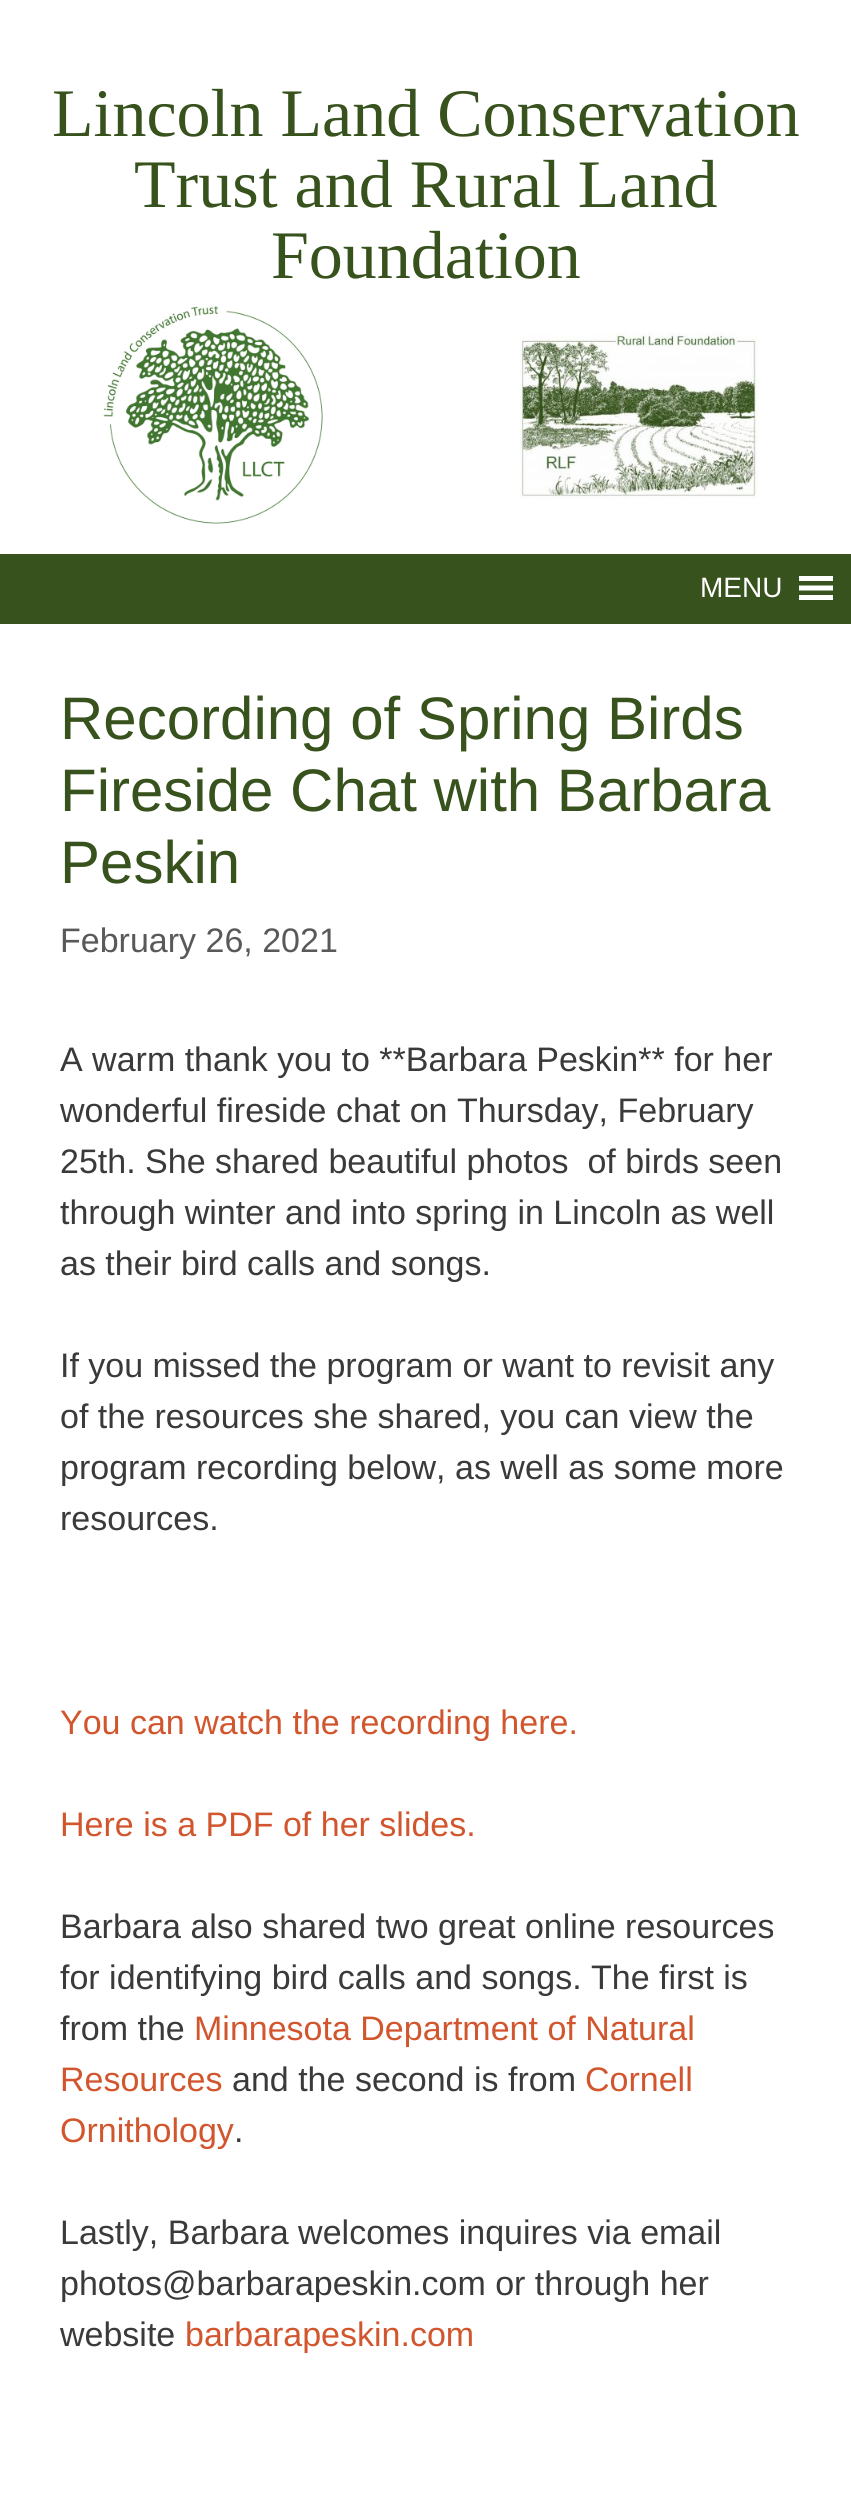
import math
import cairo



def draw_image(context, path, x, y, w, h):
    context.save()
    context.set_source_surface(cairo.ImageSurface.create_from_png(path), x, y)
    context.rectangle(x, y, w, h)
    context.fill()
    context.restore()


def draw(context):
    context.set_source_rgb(55 / 255, 82 / 255, 29 / 255)
    context.paint()
    context.set_source_rgb(1, 1, 1)
    context.rectangle(0, 0, 851, 554)
    context.fill()
    draw_image(context, "images/1.png", 103, 306, 220, 218)
    draw_image(context, "images/2.png", 520, 332, 239, 167)
    context.new_path()
    context.move_to(799, 600)
    context.line_to(833, 600)
    context.line_to(833, 595)
    context.line_to(799, 595)
    context.close_path()
    context.move_to(799, 576)
    context.line_to(799, 581)
    context.line_to(833, 581)
    context.line_to(833, 576)
    context.close_path()
    context.move_to(799, 590.5)
    context.line_to(833, 590.5)
    context.line_to(833, 585.5)
    context.line_to(799, 585.5)
    context.close_path()
    context.fill()
    context.rectangle(0, 624, 851, 1895)
    context.fill()
    context.select_font_face("Liberation Serif")
    context.set_font_size(68)
    context.set_source_rgb(55 / 255, 82 / 255, 29 / 255)
    context.move_to(52, 136)
    context.show_text("Lincoln Land Conservation")
    context.move_to(134, 207)
    context.show_text("Trust and Rural Land")
    context.move_to(271, 278)
    context.show_text("Foundation")
    context.select_font_face("Liberation Sans")
    context.set_font_size(28)
    context.set_source_rgb(1, 1, 1)
    context.move_to(700, 597)
    context.show_text("MENU")
    context.set_font_size(60)
    context.set_source_rgb(55 / 255, 82 / 255, 29 / 255)
    context.move_to(60, 739)
    context.show_text("Recording of Spring Birds")
    context.move_to(60, 811)
    context.show_text("Fireside Chat with Barbara")
    context.move_to(60, 883)
    context.show_text("Peskin")
    context.set_font_size(34)
    context.set_source_rgb(89 / 255, 89 / 255, 89 / 255)
    context.move_to(60, 952)
    context.show_text("February 26, 2021")
    context.set_source_rgb(58 / 255, 58 / 255, 58 / 255)
    context.move_to(60, 1071)
    context.show_text("A warm thank you to **Barbara Peskin** for her")
    context.move_to(60, 1122)
    context.show_text("wonderful fireside chat on Thursday, February")
    context.move_to(60, 1173)
    context.show_text("25th. She shared beautiful photos  of birds seen")
    context.move_to(60, 1224)
    context.show_text("through winter and into spring in Lincoln as well")
    context.move_to(60, 1275)
    context.show_text("as their bird calls and songs.")
    context.move_to(60, 1377)
    context.show_text("If you missed the program or want to revisit any")
    context.move_to(60, 1428)
    context.show_text("of the resources she shared, you can view the")
    context.move_to(60, 1479)
    context.show_text("program recording below, as well as some more")
    context.move_to(60, 1530)
    context.show_text("resources.")
    context.set_source_rgb(210 / 255, 86 / 255, 45 / 255)
    context.move_to(60, 1734)
    context.show_text("You can watch the recording here.")
    context.move_to(60, 1836)
    context.show_text("Here is a PDF of her slides.")
    context.set_source_rgb(58 / 255, 58 / 255, 58 / 255)
    context.move_to(60, 1938)
    context.show_text("Barbara also shared two great online resources")
    context.move_to(60, 1989)
    context.show_text("for identifying bird calls and songs. The first is")
    context.move_to(60, 2040)
    context.show_text("from the")
    context.set_source_rgb(210 / 255, 86 / 255, 45 / 255)
    context.move_to(194, 2040)
    context.show_text("Minnesota Department of Natural")
    context.move_to(60, 2091)
    context.show_text("Resources")
    context.set_source_rgb(58 / 255, 58 / 255, 58 / 255)
    context.move_to(232, 2091)
    context.show_text("and the second is from")
    context.set_source_rgb(210 / 255, 86 / 255, 45 / 255)
    context.move_to(585, 2091)
    context.show_text("Cornell")
    context.move_to(60, 2142)
    context.show_text("Ornithology")
    context.set_source_rgb(58 / 255, 58 / 255, 58 / 255)
    context.move_to(234, 2142)
    context.show_text(".")
    context.move_to(60, 2244)
    context.show_text("Lastly, Barbara welcomes inquires via email")
    context.move_to(60, 2295)
    context.show_text("photos@barbarapeskin.com or through her")
    context.move_to(60, 2346)
    context.show_text("website")
    context.set_source_rgb(210 / 255, 86 / 255, 45 / 255)
    context.move_to(185, 2346)
    context.show_text("barbarapeskin.com")


surface = cairo.ImageSurface(cairo.Format.RGB24, 851, 2519)
context = cairo.Context(surface)
options = cairo.FontOptions()
options.set_hint_metrics(cairo.HintMetrics.OFF)
options.set_hint_style(cairo.HintStyle.NONE)
context.set_font_options(options)
context.set_miter_limit(4)
draw(context)
surface.write_to_png("out.png")
